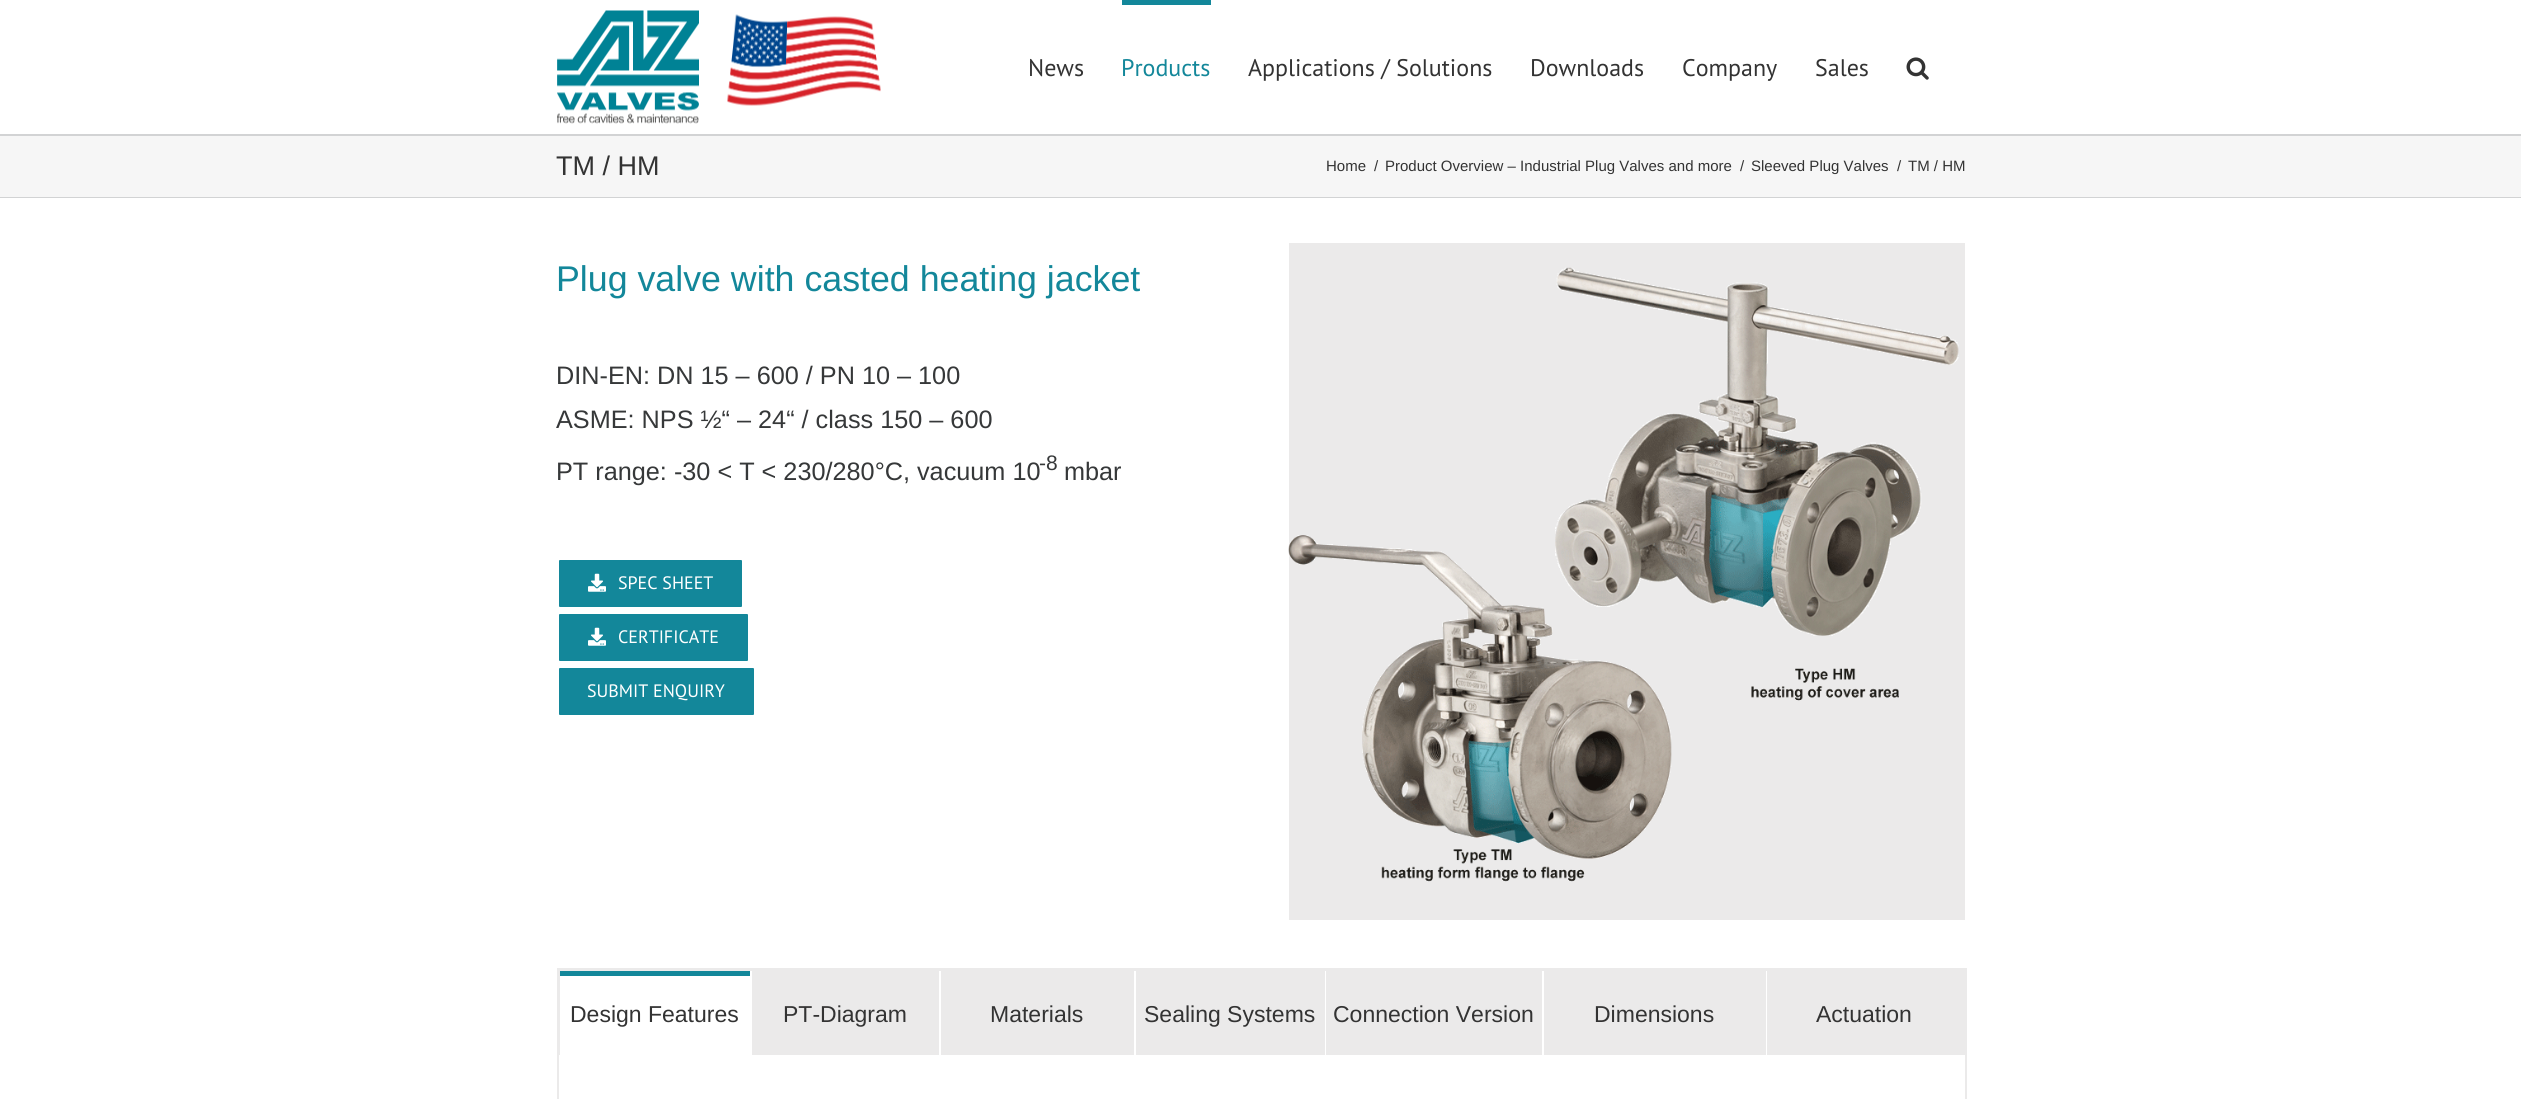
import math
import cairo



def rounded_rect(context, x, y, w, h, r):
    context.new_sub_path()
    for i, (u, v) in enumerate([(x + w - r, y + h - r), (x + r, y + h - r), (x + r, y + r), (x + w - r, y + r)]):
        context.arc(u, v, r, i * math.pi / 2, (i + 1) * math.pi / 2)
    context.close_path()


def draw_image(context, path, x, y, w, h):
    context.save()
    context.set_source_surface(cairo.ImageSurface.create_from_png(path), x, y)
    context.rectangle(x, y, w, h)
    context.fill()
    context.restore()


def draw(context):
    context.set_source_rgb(1, 1, 1)
    context.paint()
    draw_image(context, "images/1.png", 557, 10, 142, 114)
    draw_image(context, "images/2.png", 727, 14, 154, 92)
    context.set_source_rgb(19 / 255, 135 / 255, 154 / 255)
    context.rectangle(1122, 0, 89, 5)
    context.fill()
    draw_image(context, "images/3.png", 1906, 57, 23, 23)
    context.set_source_rgb(246 / 255, 246 / 255, 246 / 255)
    context.rectangle(0, 136, 2521, 61)
    context.fill()
    context.set_source_rgb(210 / 255, 211 / 255, 212 / 255)
    context.rectangle(0, 134, 2521, 2)
    context.fill()
    context.rectangle(0, 197, 2521, 1)
    context.fill()
    context.set_source_rgb(19 / 255, 135 / 255, 154 / 255)
    rounded_rect(context, 558, 559, 185, 49, 2)
    context.fill_preserve()
    context.set_source_rgb(1, 1, 1)
    context.stroke()
    draw_image(context, "images/4.png", 588, 573, 18, 19)
    context.set_source_rgb(19 / 255, 135 / 255, 154 / 255)
    rounded_rect(context, 558, 613, 191, 49, 2)
    context.fill_preserve()
    context.set_source_rgb(1, 1, 1)
    context.stroke()
    draw_image(context, "images/4.png", 588, 627, 18, 19)
    context.set_source_rgb(19 / 255, 135 / 255, 154 / 255)
    rounded_rect(context, 558, 667, 197, 49, 2)
    context.fill_preserve()
    context.set_source_rgb(1, 1, 1)
    context.stroke()
    context.set_source_rgb(235 / 255, 234 / 255, 234 / 255)
    context.rectangle(1289, 243, 676, 677)
    context.fill()
    draw_image(context, "images/5.png", 1288, 267, 671, 615)
    context.rectangle(558, 969, 1408, 85)
    context.stroke()
    context.set_source_rgb(1, 1, 1)
    context.rectangle(560, 1053, 1207, 2)
    context.fill()
    context.set_source_rgb(235 / 255, 234 / 255, 234 / 255)
    context.rectangle(558, 970, 1407, 1)
    context.fill()
    context.rectangle(1964, 969, 1, 86)
    context.fill()
    context.rectangle(559, 969, 1, 86)
    context.fill()
    context.set_source_rgb(19 / 255, 135 / 255, 154 / 255)
    context.rectangle(560, 971, 190, 5)
    context.fill()
    context.set_source_rgb(235 / 255, 234 / 255, 234 / 255)
    context.rectangle(752, 971, 187, 84)
    context.fill()
    context.rectangle(941, 971, 193, 84)
    context.fill()
    context.rectangle(1136, 971, 189, 84)
    context.fill()
    context.rectangle(1326, 971, 216, 84)
    context.fill()
    context.rectangle(1544, 971, 222, 84)
    context.fill()
    context.rectangle(1767, 971, 197, 82)
    context.fill()
    context.rectangle(1965, 1055, 2, 44)
    context.fill()
    context.rectangle(557, 1055, 2, 44)
    context.fill()
    context.select_font_face("PT Sans")
    context.set_font_size(24)
    context.set_source_rgb(51 / 255, 51 / 255, 51 / 255)
    context.move_to(1028, 76)
    context.show_text("News")
    context.set_source_rgb(19 / 255, 135 / 255, 154 / 255)
    context.move_to(1121, 76)
    context.show_text("Products")
    context.set_source_rgb(51 / 255, 51 / 255, 51 / 255)
    context.move_to(1248, 76)
    context.show_text("Applications / Solutions")
    context.move_to(1530, 76)
    context.show_text("Downloads")
    context.move_to(1682, 76)
    context.show_text("Company")
    context.move_to(1815, 76)
    context.show_text("Sales")
    context.select_font_face("Liberation Sans")
    context.set_font_size(27)
    context.move_to(556, 175)
    context.show_text("TM / HM")
    context.set_font_size(15)
    context.move_to(1326, 171)
    context.show_text("Home")
    context.move_to(1374, 171)
    context.show_text("/")
    context.move_to(1385, 171)
    context.show_text("Product Overview – Industrial Plug Valves and more")
    context.move_to(1740, 171)
    context.show_text("/")
    context.move_to(1751, 171)
    context.show_text("Sleeved Plug Valves")
    context.move_to(1897, 171)
    context.show_text("/")
    context.move_to(1908, 171)
    context.show_text("TM / HM")
    context.set_font_size(35.75)
    context.set_source_rgb(19 / 255, 135 / 255, 154 / 255)
    context.move_to(556, 291)
    context.show_text("Plug valve with casted heating jacket")
    context.set_font_size(25.25)
    context.set_source_rgb(54 / 255, 56 / 255, 57 / 255)
    context.move_to(556, 384)
    context.show_text("DIN-EN: DN 15 – 600 / PN 10 – 100")
    context.move_to(556, 428)
    context.show_text("ASME: NPS ½“ – 24“ / class 150 – 600")
    context.move_to(556, 480)
    context.show_text("PT range: -30 < T < 230/280°C, vacuum 10")
    context.set_font_size(21)
    context.move_to(1039, 470)
    context.show_text("-8")
    context.set_font_size(25.25)
    context.move_to(1064, 480)
    context.show_text("mbar")
    context.select_font_face("PT Sans")
    context.set_font_size(18)
    context.set_source_rgb(1, 1, 1)
    context.move_to(618, 589)
    context.show_text("SPEC SHEET")
    context.move_to(618, 643)
    context.show_text("CERTIFICATE")
    context.move_to(587, 697)
    context.show_text("SUBMIT ENQUIRY")
    context.select_font_face("Liberation Sans")
    context.set_font_size(23)
    context.set_source_rgb(51 / 255, 51 / 255, 51 / 255)
    context.move_to(570, 1022)
    context.show_text("Design Features")
    context.move_to(783, 1022)
    context.show_text("PT-Diagram")
    context.move_to(990, 1022)
    context.show_text("Materials")
    context.move_to(1144, 1022)
    context.show_text("Sealing Systems")
    context.move_to(1333, 1022)
    context.show_text("Connection Version")
    context.move_to(1594, 1022)
    context.show_text("Dimensions")
    context.move_to(1816, 1022)
    context.show_text("Actuation")


surface = cairo.ImageSurface(cairo.Format.RGB24, 2521, 1099)
context = cairo.Context(surface)
options = cairo.FontOptions()
options.set_hint_metrics(cairo.HintMetrics.OFF)
options.set_hint_style(cairo.HintStyle.NONE)
context.set_font_options(options)
context.set_miter_limit(4)
draw(context)
surface.write_to_png("out.png")
